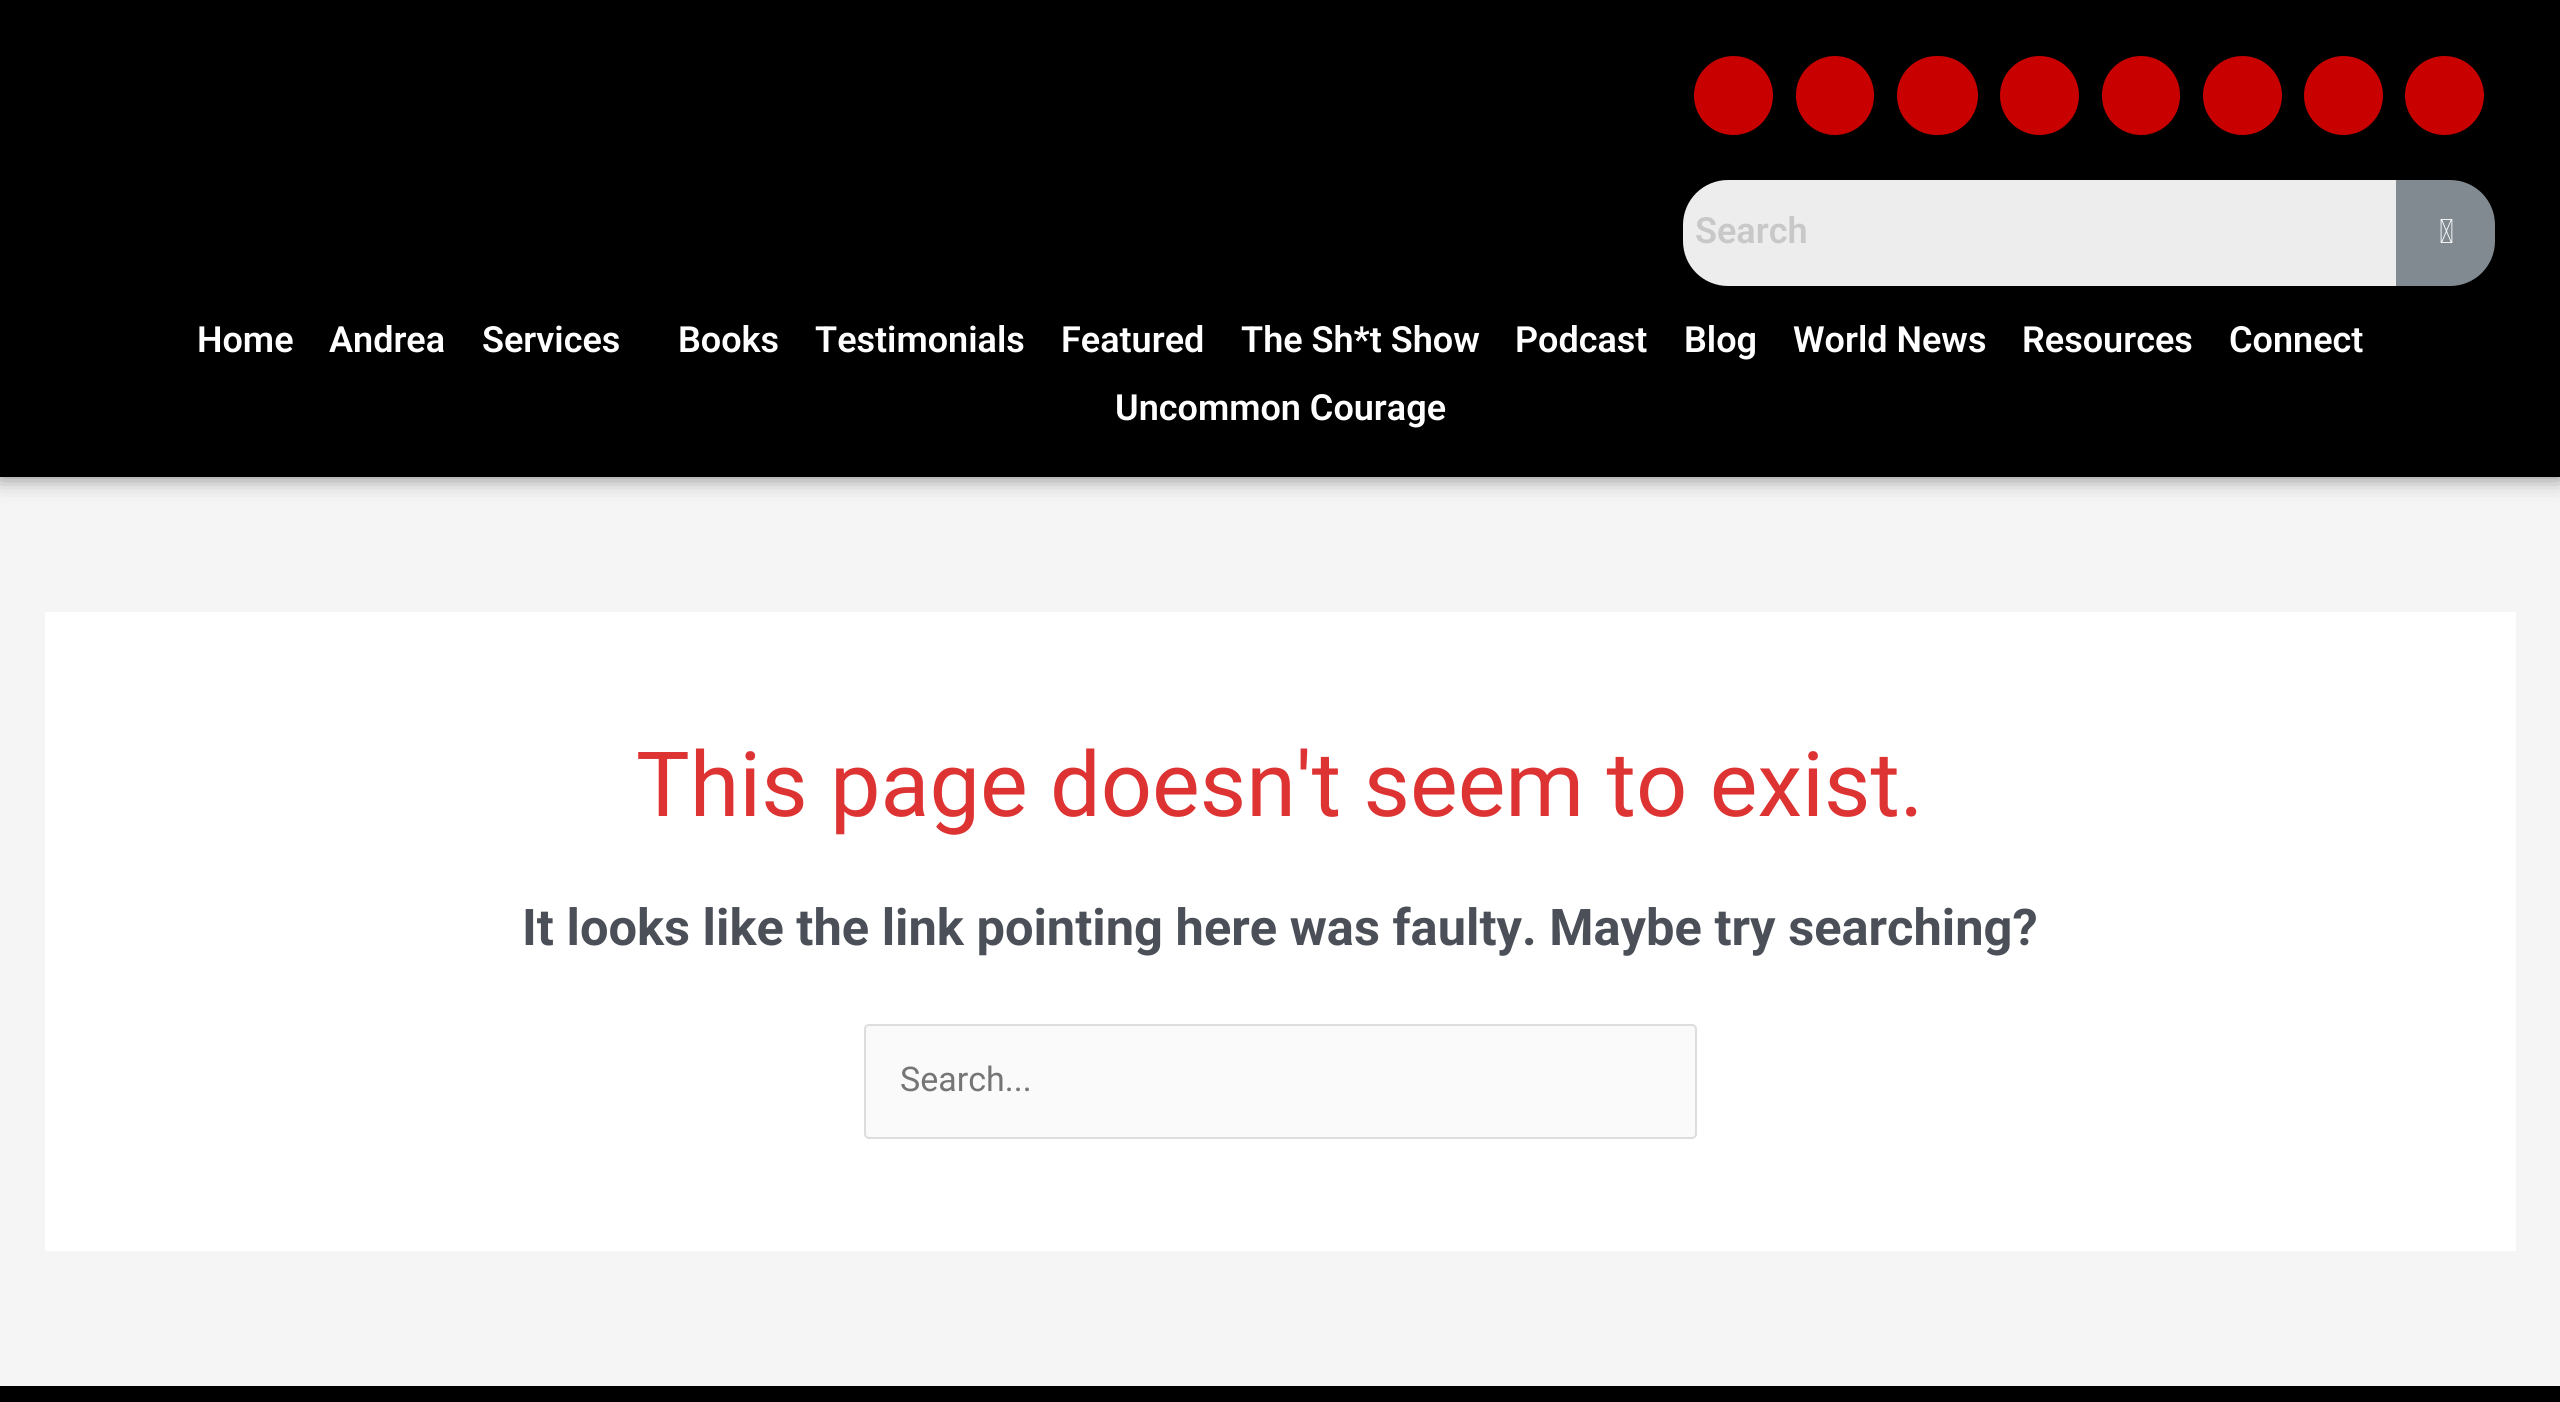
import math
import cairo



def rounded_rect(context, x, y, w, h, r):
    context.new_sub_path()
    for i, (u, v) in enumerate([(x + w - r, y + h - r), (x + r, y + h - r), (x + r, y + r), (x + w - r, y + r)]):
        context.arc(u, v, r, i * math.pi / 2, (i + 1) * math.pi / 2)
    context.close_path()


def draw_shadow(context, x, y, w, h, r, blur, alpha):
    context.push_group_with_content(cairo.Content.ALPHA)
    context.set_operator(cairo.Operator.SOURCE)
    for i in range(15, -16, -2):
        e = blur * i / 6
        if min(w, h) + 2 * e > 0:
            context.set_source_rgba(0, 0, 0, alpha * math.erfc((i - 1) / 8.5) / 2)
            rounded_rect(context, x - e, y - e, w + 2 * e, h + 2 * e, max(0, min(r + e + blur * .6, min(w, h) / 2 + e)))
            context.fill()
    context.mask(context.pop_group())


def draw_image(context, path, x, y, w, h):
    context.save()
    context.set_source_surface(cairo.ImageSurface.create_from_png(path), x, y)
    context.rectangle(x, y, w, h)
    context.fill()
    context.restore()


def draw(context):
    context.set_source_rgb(245 / 255, 245 / 255, 245 / 255)
    context.paint()
    context.set_source_rgb(0, 0, 0)
    draw_shadow(context, 0, 0, 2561, 477, 0, 11, 0.5)
    context.set_source_rgb(0, 0, 0)
    context.rectangle(0, 0, 2560, 477)
    context.fill()
    context.set_source_rgb(200 / 255, 0, 0)
    context.arc(1733.5, 95.5, 39.5, 0, 2 * math.pi)
    context.fill()
    rounded_rect(context, 1796, 56, 78, 79, 39)
    context.fill()
    rounded_rect(context, 1897, 56, 81, 79, 39.5)
    context.fill()
    context.arc(2039.5, 95.5, 39.5, 0, 2 * math.pi)
    context.fill()
    rounded_rect(context, 2102, 56, 78, 79, 39)
    context.fill()
    context.arc(2242.5, 95.5, 39.5, 0, 2 * math.pi)
    context.fill()
    context.arc(2343.5, 95.5, 39.5, 0, 2 * math.pi)
    context.fill()
    context.arc(2444.5, 95.5, 39.5, 0, 2 * math.pi)
    context.fill()
    context.set_source_rgb(237 / 255, 237 / 255, 237 / 255)
    context.new_path()
    context.move_to(1728, 180)
    context.line_to(2396, 180)
    context.line_to(2396, 286)
    context.line_to(1728, 286)
    context.curve_to(1703, 286, 1683, 266, 1683, 241)
    context.line_to(1683, 225)
    context.curve_to(1683, 200, 1703, 180, 1728, 180)
    context.close_path()
    context.fill()
    context.set_source_rgb(129 / 255, 138 / 255, 145 / 255)
    context.new_path()
    context.move_to(2396, 180)
    context.line_to(2450, 180)
    context.curve_to(2475, 180, 2495, 200, 2495, 225)
    context.line_to(2495, 241)
    context.curve_to(2495, 266, 2475, 286, 2450, 286)
    context.line_to(2396, 286)
    context.close_path()
    context.fill()
    draw_image(context, "images/1.png", 2440, 219, 13, 24)
    context.set_source_rgb(1, 1, 1)
    context.rectangle(45, 612, 2471, 639)
    context.fill()
    context.set_source_rgb(250 / 255, 250 / 255, 250 / 255)
    rounded_rect(context, 865, 1025, 831, 113, 4)
    context.fill_preserve()
    context.set_source_rgb(221 / 255, 221 / 255, 221 / 255)
    context.stroke()
    context.set_source_rgb(0, 0, 0)
    context.rectangle(0, 1386, 2560, 16)
    context.fill()
    context.select_font_face("Roboto SemiBold")
    context.set_font_size(36)
    context.set_source_rgb(200 / 255, 200 / 255, 200 / 255)
    context.move_to(1695, 243)
    context.show_text("Search")
    context.set_source_rgb(1, 1, 1)
    context.move_to(197, 352)
    context.show_text("Home")
    context.move_to(329, 352)
    context.show_text("Andrea")
    context.move_to(482, 352)
    context.show_text("Services")
    context.move_to(678, 352)
    context.show_text("Books")
    context.move_to(815, 352)
    context.show_text("Testimonials")
    context.move_to(1061, 352)
    context.show_text("Featured")
    context.move_to(1241, 352)
    context.show_text("The Sh*t Show")
    context.move_to(1515, 352)
    context.show_text("Podcast")
    context.move_to(1684, 352)
    context.show_text("Blog")
    context.move_to(1793, 352)
    context.show_text("World News")
    context.move_to(2022, 352)
    context.show_text("Resources")
    context.move_to(2229, 352)
    context.show_text("Connect")
    context.move_to(1115, 420)
    context.show_text("Uncommon Courage")
    context.select_font_face("Roboto")
    context.set_font_size(90)
    context.set_source_rgb(221 / 255, 51 / 255, 51 / 255)
    context.move_to(636, 816)
    context.show_text("This page doesn't seem to exist.")
    context.select_font_face("Roboto", cairo.FontSlant.NORMAL, cairo.FontWeight.BOLD)
    context.set_font_size(50.6)
    context.set_source_rgb(75 / 255, 79 / 255, 88 / 255)
    context.move_to(522, 945)
    context.show_text("It looks like the link pointing here was faulty. Maybe try searching?")
    context.select_font_face("Roboto")
    context.set_font_size(34)
    context.set_source_rgb(117 / 255, 117 / 255, 117 / 255)
    context.move_to(900, 1091)
    context.show_text("Search...")


surface = cairo.ImageSurface(cairo.Format.RGB24, 2560, 1402)
context = cairo.Context(surface)
options = cairo.FontOptions()
options.set_hint_metrics(cairo.HintMetrics.OFF)
options.set_hint_style(cairo.HintStyle.NONE)
context.set_font_options(options)
context.set_miter_limit(4)
draw(context)
surface.write_to_png("out.png")
